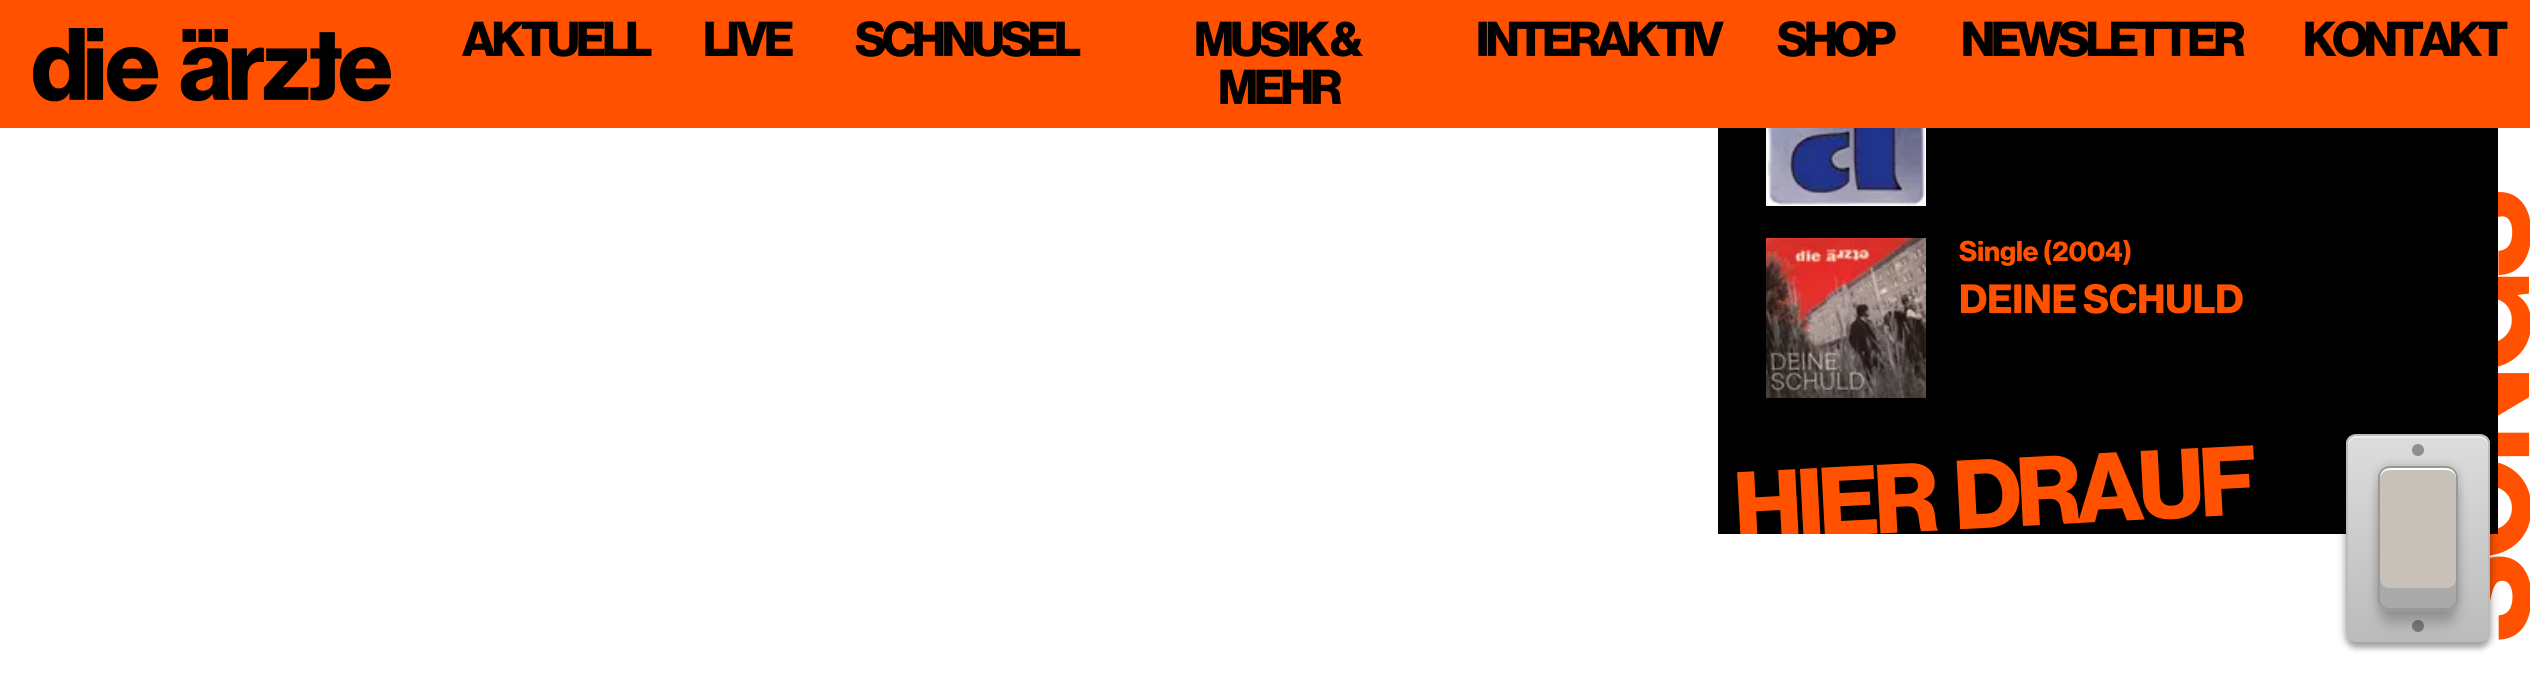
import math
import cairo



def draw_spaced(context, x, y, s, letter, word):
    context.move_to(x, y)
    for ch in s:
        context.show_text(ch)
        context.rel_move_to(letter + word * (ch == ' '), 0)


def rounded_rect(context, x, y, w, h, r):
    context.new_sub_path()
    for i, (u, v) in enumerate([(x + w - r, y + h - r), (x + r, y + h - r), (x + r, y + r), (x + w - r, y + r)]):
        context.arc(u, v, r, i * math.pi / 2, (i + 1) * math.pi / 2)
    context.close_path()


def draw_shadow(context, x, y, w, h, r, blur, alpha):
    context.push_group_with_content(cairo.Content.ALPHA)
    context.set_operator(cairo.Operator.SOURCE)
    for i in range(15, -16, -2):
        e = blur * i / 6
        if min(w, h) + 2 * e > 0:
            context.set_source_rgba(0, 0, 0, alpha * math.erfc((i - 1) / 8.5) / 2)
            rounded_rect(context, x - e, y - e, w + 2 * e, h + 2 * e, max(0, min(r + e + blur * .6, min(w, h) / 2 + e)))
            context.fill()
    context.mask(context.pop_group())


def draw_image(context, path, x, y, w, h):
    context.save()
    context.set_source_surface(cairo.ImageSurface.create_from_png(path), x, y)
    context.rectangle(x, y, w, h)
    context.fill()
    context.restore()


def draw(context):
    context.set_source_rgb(1, 1, 1)
    context.paint()
    context.set_source_rgb(1, 81 / 255, 0)
    context.rectangle(0, 0, 2530, 128)
    context.fill()
    draw_image(context, "images/1.png", 33, 28, 358, 74)
    draw_image(context, "images/4.png", 2490, 192, 40, 448)
    context.set_source_rgb(0, 0, 0)
    context.rectangle(1718, 128, 780, 406)
    context.fill()
    draw_image(context, "images/2.png", 1766, 128, 160, 78)
    draw_image(context, "images/3.png", 1766, 238, 160, 160)
    context.set_source_rgb(0, 0, 0)
    draw_shadow(context, 2346, 440, 144, 208, 10, 3, 0.3)
    draw_shadow(context, 2344, 432, 148, 212, 12, 5, 0.15)
    context.save()
    rounded_rect(context, 2346, 434, 144, 208, 10)
    context.clip()
    gradient = cairo.LinearGradient(2418, 436, 2418, 640)
    gradient.add_color_stop_rgba(0, 221 / 255, 221 / 255, 221 / 255, 1)
    gradient.add_color_stop_rgba(1, 187 / 255, 187 / 255, 187 / 255, 1)
    context.set_source(gradient)
    context.rectangle(2346, 436, 144, 204)
    context.fill()
    context.restore()
    context.set_source_rgb(238 / 255, 238 / 255, 238 / 255)
    context.new_path()
    context.move_to(2356, 438)
    context.line_to(2480, 438)
    context.curve_to(2484, 438, 2488, 442, 2488, 446)
    context.line_to(2488, 444)
    context.curve_to(2488, 440, 2484, 436, 2480, 436)
    context.line_to(2356, 436)
    context.curve_to(2352, 436, 2348, 440, 2348, 444)
    context.line_to(2348, 446)
    context.curve_to(2348, 442, 2352, 438, 2356, 438)
    context.close_path()
    context.fill()
    rounded_rect(context, 2347, 435, 142, 206, 9)
    context.set_source_rgb(187 / 255, 187 / 255, 187 / 255)
    context.stroke()
    context.set_source_rgb(0, 0, 0)
    draw_shadow(context, 2380, 484, 76, 140, 10, 6, 0.2)
    context.set_source_rgba(1, 1, 1, 0.1)
    context.new_path()
    context.move_to(2380, 598)
    context.curve_to(2380, 613, 2386, 612, 2399, 612)
    context.line_to(2437, 612)
    context.curve_to(2450, 612, 2456, 613, 2456, 598)
    context.curve_to(2456, 604, 2452, 608, 2446, 608)
    context.line_to(2390, 608)
    context.curve_to(2384, 608, 2380, 604, 2380, 598)
    context.close_path()
    context.fill()
    context.set_source_rgb(0, 0, 0)
    draw_shadow(context, 2378, 466, 80, 144, 12, 5, 0.2)
    rounded_rect(context, 2379, 467, 78, 142, 11)
    context.set_source_rgb(153 / 255, 153 / 255, 153 / 255)
    context.stroke()
    context.set_source_rgb(199 / 255, 193 / 255, 185 / 255)
    rounded_rect(context, 2380, 468, 76, 140, 10)
    context.fill()
    context.set_source_rgb(170 / 255, 170 / 255, 170 / 255)
    context.new_path()
    context.move_to(2380, 578)
    context.line_to(2380, 598)
    context.curve_to(2380, 604, 2384, 608, 2390, 608)
    context.line_to(2446, 608)
    context.curve_to(2452, 608, 2456, 604, 2456, 598)
    context.line_to(2456, 578)
    context.curve_to(2456, 584, 2452, 588, 2446, 588)
    context.line_to(2390, 588)
    context.curve_to(2384, 588, 2380, 584, 2380, 578)
    context.close_path()
    context.fill()
    context.set_source_rgb(1, 1, 1)
    context.new_path()
    context.move_to(2390, 470)
    context.line_to(2446, 470)
    context.curve_to(2452, 470, 2456, 474, 2456, 480)
    context.curve_to(2456, 467, 2447, 468, 2437, 468)
    context.line_to(2399, 468)
    context.curve_to(2389, 468, 2380, 467, 2380, 480)
    context.curve_to(2380, 474, 2384, 470, 2390, 470)
    context.close_path()
    context.fill()
    context.set_source_rgba(0, 0, 0, 0.35)
    context.arc(2418, 450, 6, 0, 2 * math.pi)
    context.fill()
    context.arc(2418, 626, 6, 0, 2 * math.pi)
    context.fill()
    context.select_font_face("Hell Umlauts", cairo.FontSlant.NORMAL, cairo.FontWeight.BOLD)
    context.set_font_size(48)
    context.set_source_rgb(0, 0, 0)
    draw_spaced(context, 462, 56, "AKTUELL", -4, 0)
    draw_spaced(context, 703, 56, "LIVE", -3.5, 0)
    draw_spaced(context, 855, 56, "SCHNUSEL", -4, 0)
    draw_spaced(context, 1194, 56, "MUSIK &", -3.75, 0)
    draw_spaced(context, 1218, 104, "MEHR", -4, 0)
    draw_spaced(context, 1476, 56, "INTERAKTIV", -3.75, 0)
    draw_spaced(context, 1777, 56, "SHOP", -4.25, 0)
    draw_spaced(context, 1961, 56, "NEWSLETTER", -4, 0)
    draw_spaced(context, 2303, 56, "KONTAKT", -4.25, 0)
    context.set_font_size(28)
    context.set_source_rgb(1, 81 / 255, 0)
    context.move_to(1959, 261)
    context.show_text("Single (2004)")
    context.set_font_size(40)
    context.move_to(1959, 313)
    context.show_text("DEINE SCHULD")
    context.save()
    context.rectangle(1718, 0, 780, 534)
    context.clip()
    context.set_font_size(96)
    context.save()
    context.translate(1736, 541)
    context.rotate(-3 * math.pi / 180)
    draw_spaced(context, 0, 0, "HIER DRAUF", -4.75, 10)
    context.restore()
    context.restore()


surface = cairo.ImageSurface(cairo.Format.RGB24, 2530, 690)
context = cairo.Context(surface)
options = cairo.FontOptions()
options.set_hint_metrics(cairo.HintMetrics.OFF)
options.set_hint_style(cairo.HintStyle.NONE)
context.set_font_options(options)
context.set_miter_limit(4)
draw(context)
surface.write_to_png("out.png")
